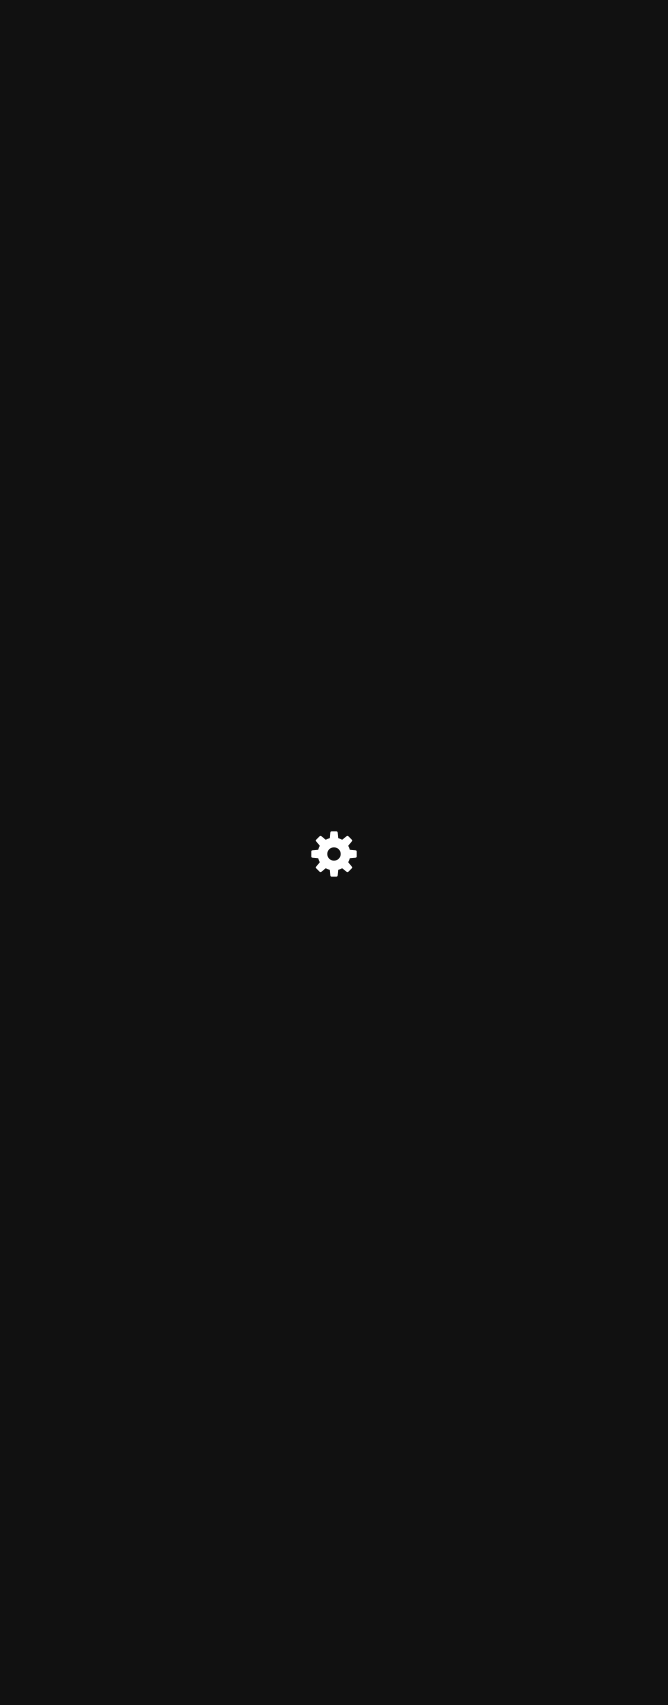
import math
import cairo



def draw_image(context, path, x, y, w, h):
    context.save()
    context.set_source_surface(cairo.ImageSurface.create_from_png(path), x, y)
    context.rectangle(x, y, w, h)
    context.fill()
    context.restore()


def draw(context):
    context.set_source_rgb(17 / 255, 17 / 255, 17 / 255)
    context.paint()
    draw_image(context, "images/1.png", 311, 831, 46, 46)


surface = cairo.ImageSurface(cairo.Format.RGB24, 668, 1705)
context = cairo.Context(surface)
options = cairo.FontOptions()
options.set_hint_metrics(cairo.HintMetrics.OFF)
options.set_hint_style(cairo.HintStyle.NONE)
context.set_font_options(options)
context.set_miter_limit(4)
draw(context)
surface.write_to_png("out.png")
